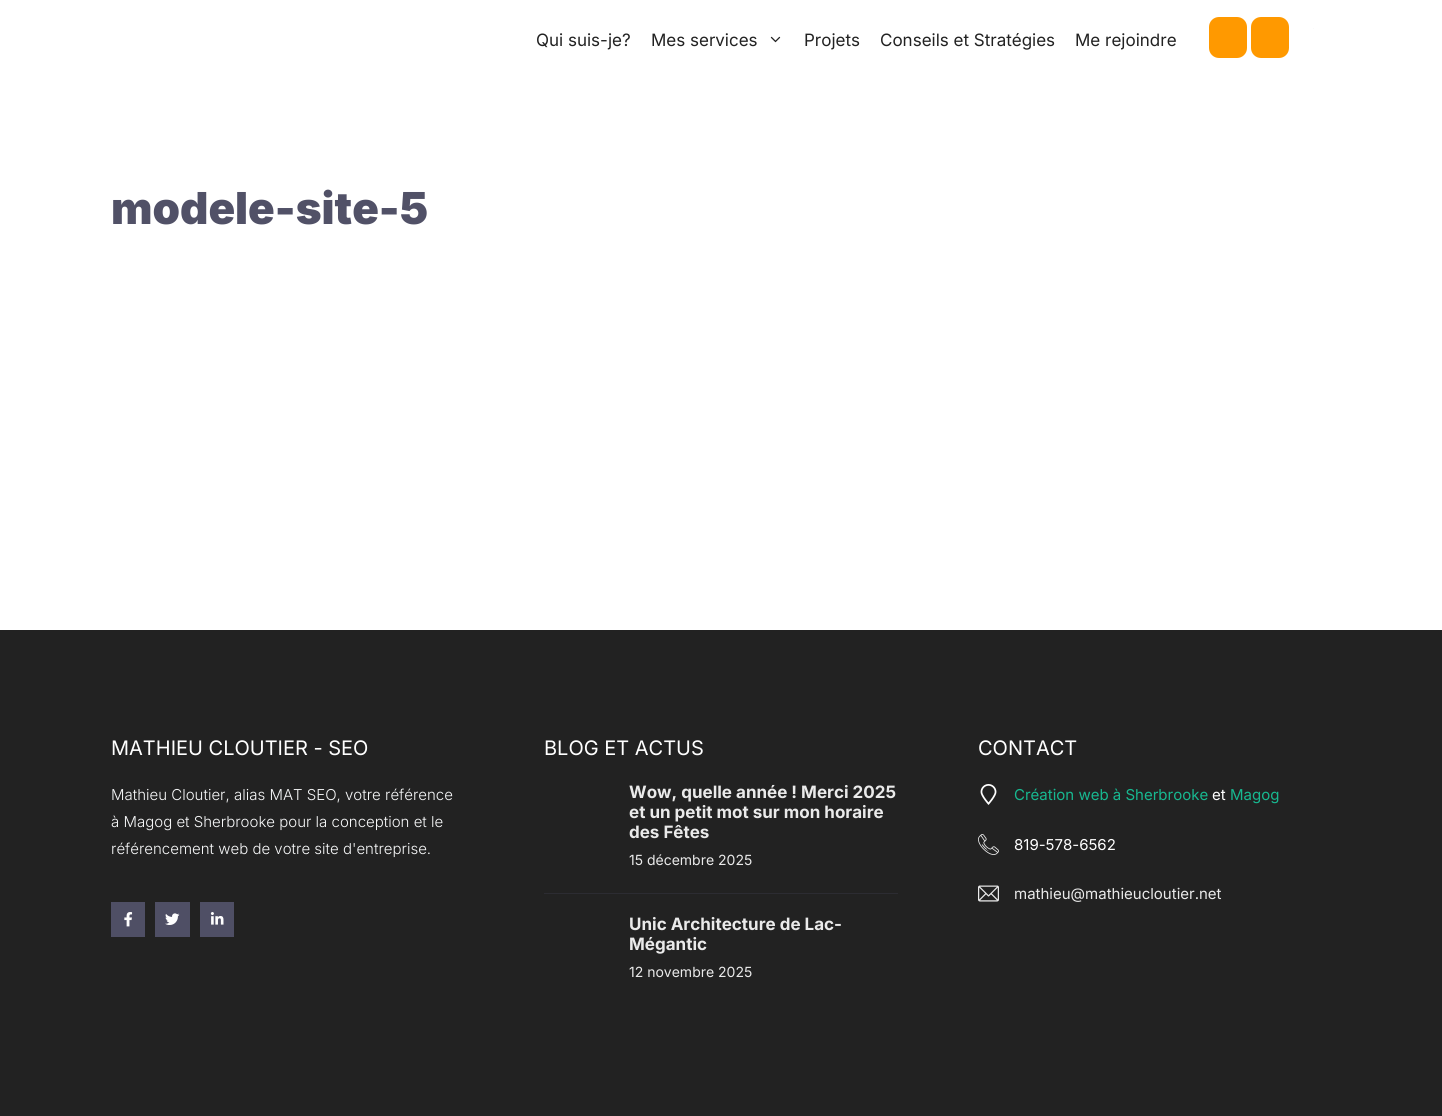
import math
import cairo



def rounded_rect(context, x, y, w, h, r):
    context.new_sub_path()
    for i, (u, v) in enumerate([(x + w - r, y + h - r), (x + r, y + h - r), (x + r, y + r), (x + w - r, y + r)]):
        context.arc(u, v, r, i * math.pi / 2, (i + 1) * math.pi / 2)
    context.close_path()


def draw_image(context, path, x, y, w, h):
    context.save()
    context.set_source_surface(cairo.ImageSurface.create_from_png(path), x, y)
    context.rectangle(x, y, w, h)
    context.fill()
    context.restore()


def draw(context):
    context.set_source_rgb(1, 1, 1)
    context.paint()
    draw_image(context, "images/1.png", 770, 36, 11, 7)
    context.set_source_rgb(1, 153 / 255, 0)
    rounded_rect(context, 1209, 17, 38, 41, 10)
    context.fill()
    rounded_rect(context, 1251, 17, 38, 41, 10)
    context.fill()
    context.set_source_rgb(250 / 255, 250 / 255, 250 / 255)
    context.rectangle(1313, 28, 1, 1)
    context.fill()
    context.set_source_rgb(34 / 255, 34 / 255, 34 / 255)
    context.rectangle(0, 630, 1442, 486)
    context.fill()
    context.set_source_rgb(79 / 255, 79 / 255, 101 / 255)
    context.rectangle(111, 902, 34, 35)
    context.fill()
    draw_image(context, "images/2.png", 124, 912, 9, 15)
    context.rectangle(155, 902, 35, 35)
    context.fill()
    draw_image(context, "images/3.png", 165, 913, 15, 12)
    context.rectangle(200, 902, 34, 35)
    context.fill()
    draw_image(context, "images/4.png", 210, 912, 14, 13)
    context.set_source_rgb(44 / 255, 44 / 255, 50 / 255)
    context.rectangle(544, 893, 354, 1)
    context.fill()
    draw_image(context, "images/5.png", 980, 784, 17, 21)
    draw_image(context, "images/6.png", 978, 834, 21, 21)
    draw_image(context, "images/7.png", 978, 885, 21, 17)
    context.select_font_face("Inter")
    context.set_font_size(17)
    context.set_source_rgb(34 / 255, 34 / 255, 34 / 255)
    context.move_to(536, 46)
    context.show_text("Qui suis-je?")
    context.move_to(651, 46)
    context.show_text("Mes services")
    context.move_to(804, 46)
    context.show_text("Projets")
    context.move_to(880, 46)
    context.show_text("Conseils et Stratégies")
    context.move_to(1075, 46)
    context.show_text("Me rejoindre")
    context.select_font_face("Inter Black")
    context.set_font_size(44)
    context.set_source_rgb(81 / 255, 81 / 255, 103 / 255)
    context.move_to(111, 224)
    context.show_text("modele-site-5")
    context.select_font_face("Inter")
    context.set_font_size(20)
    context.set_source_rgb(1, 1, 1)
    context.move_to(111, 755)
    context.show_text("MATHIEU CLOUTIER - SEO")
    context.select_font_face("Inter Light")
    context.set_font_size(15)
    context.set_source_rgb(247 / 255, 248 / 255, 249 / 255)
    context.move_to(111, 800)
    context.show_text("Mathieu Cloutier, alias MAT SEO, votre référence")
    context.move_to(111, 827)
    context.show_text("à Magog et Sherbrooke pour la conception et le")
    context.move_to(111, 854)
    context.show_text("référencement web de votre site d'entreprise.")
    context.select_font_face("Inter")
    context.set_font_size(20)
    context.set_source_rgb(1, 1, 1)
    context.move_to(544, 755)
    context.show_text("BLOG ET ACTUS")
    context.select_font_face("Inter", cairo.FontSlant.NORMAL, cairo.FontWeight.BOLD)
    context.set_font_size(17)
    context.set_source_rgb(234 / 255, 234 / 255, 234 / 255)
    context.move_to(629, 798)
    context.show_text("Wow, quelle année ! Merci 2025")
    context.move_to(629, 818)
    context.show_text("et un petit mot sur mon horaire")
    context.move_to(629, 838)
    context.show_text("des Fêtes")
    context.select_font_face("Inter")
    context.set_font_size(14)
    context.move_to(629, 865)
    context.show_text("15 décembre 2025")
    context.select_font_face("Inter", cairo.FontSlant.NORMAL, cairo.FontWeight.BOLD)
    context.set_font_size(17)
    context.move_to(629, 930)
    context.show_text("Unic Architecture de Lac-")
    context.move_to(629, 950)
    context.show_text("Mégantic")
    context.select_font_face("Inter")
    context.set_font_size(14)
    context.move_to(629, 977)
    context.show_text("12 novembre 2025")
    context.set_font_size(20)
    context.set_source_rgb(1, 1, 1)
    context.move_to(978, 755)
    context.show_text("CONTACT")
    context.set_font_size(15)
    context.set_source_rgb(23 / 255, 184 / 255, 144 / 255)
    context.move_to(1014, 800)
    context.show_text("Création web à Sherbrooke")
    context.set_source_rgb(1, 1, 1)
    context.move_to(1212, 800)
    context.show_text("et")
    context.set_source_rgb(23 / 255, 184 / 255, 144 / 255)
    context.move_to(1230, 800)
    context.show_text("Magog")
    context.set_source_rgb(1, 1, 1)
    context.move_to(1014, 850)
    context.show_text("819-578-6562")
    context.set_source_rgb(234 / 255, 234 / 255, 234 / 255)
    context.move_to(1014, 899)
    context.show_text("mathieu@mathieucloutier.net")


surface = cairo.ImageSurface(cairo.Format.RGB24, 1442, 1116)
context = cairo.Context(surface)
options = cairo.FontOptions()
options.set_hint_metrics(cairo.HintMetrics.OFF)
options.set_hint_style(cairo.HintStyle.NONE)
context.set_font_options(options)
context.set_miter_limit(4)
draw(context)
surface.write_to_png("out.png")
